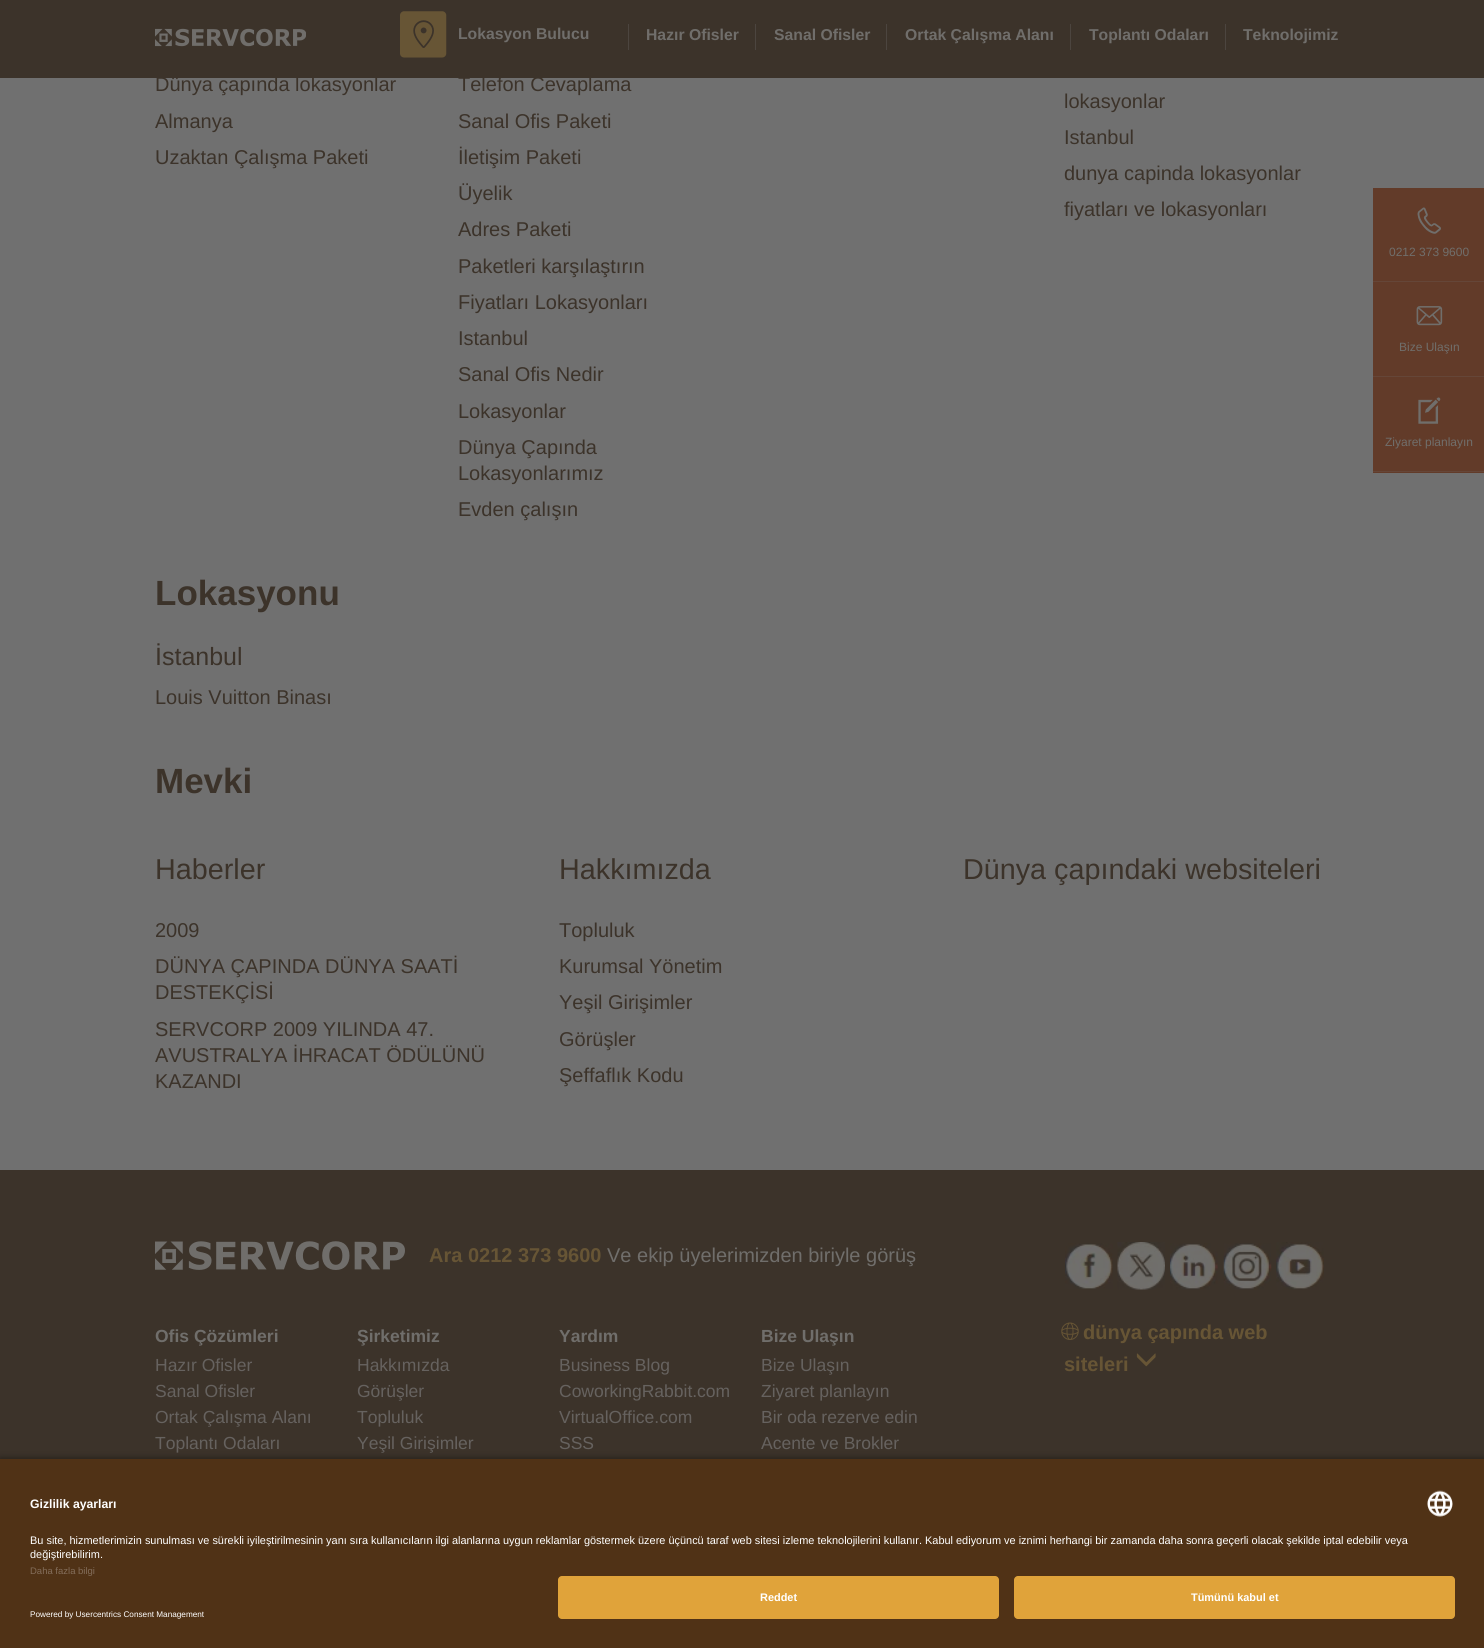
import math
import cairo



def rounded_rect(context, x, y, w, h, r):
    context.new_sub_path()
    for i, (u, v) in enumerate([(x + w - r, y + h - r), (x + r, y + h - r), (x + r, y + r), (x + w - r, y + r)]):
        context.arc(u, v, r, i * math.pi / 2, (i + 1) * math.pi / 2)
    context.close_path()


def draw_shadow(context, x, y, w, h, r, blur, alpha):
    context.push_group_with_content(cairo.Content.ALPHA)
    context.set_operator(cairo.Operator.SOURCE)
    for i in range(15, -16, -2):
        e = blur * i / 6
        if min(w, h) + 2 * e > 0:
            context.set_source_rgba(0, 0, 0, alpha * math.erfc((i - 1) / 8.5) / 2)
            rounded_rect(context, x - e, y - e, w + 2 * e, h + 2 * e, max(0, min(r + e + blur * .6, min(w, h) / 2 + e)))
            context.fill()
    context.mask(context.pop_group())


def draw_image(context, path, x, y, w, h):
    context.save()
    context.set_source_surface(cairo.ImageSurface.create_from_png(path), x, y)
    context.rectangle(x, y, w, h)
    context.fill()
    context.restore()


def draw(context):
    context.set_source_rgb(60 / 255, 51 / 255, 42 / 255)
    context.paint()
    draw_image(context, "images/1.png", 155, 28, 151, 19)
    draw_image(context, "images/2.png", 400, 11, 47, 47)
    context.set_source_rgb(76 / 255, 69 / 255, 63 / 255)
    context.rectangle(628, 24, 1, 26)
    context.fill()
    context.rectangle(755, 24, 1, 26)
    context.fill()
    context.rectangle(886, 24, 1, 26)
    context.fill()
    context.rectangle(1070, 24, 1, 26)
    context.fill()
    context.rectangle(1225, 24, 1, 26)
    context.fill()
    context.set_source_rgb(112 / 255, 112 / 255, 112 / 255)
    context.rectangle(0, 78, 1484, 1092)
    context.fill()
    context.set_source_rgb(98 / 255, 59 / 255, 41 / 255)
    context.rectangle(1373, 188, 111, 285)
    context.fill()
    context.set_source_rgb(101 / 255, 70 / 255, 56 / 255)
    context.rectangle(1373, 281, 111, 1)
    context.fill()
    draw_image(context, "images/3.png", 1417, 207, 24, 27)
    context.rectangle(1373, 376, 111, 1)
    context.fill()
    draw_image(context, "images/4.png", 1416, 306, 27, 20)
    context.rectangle(1373, 471, 111, 1)
    context.fill()
    draw_image(context, "images/5.png", 1418, 397, 23, 27)
    draw_image(context, "images/6.png", 155, 1241, 250, 29)
    draw_image(context, "images/7.png", 1065, 1243, 48, 46)
    draw_image(context, "images/8.png", 1117, 1242, 48, 48)
    draw_image(context, "images/9.png", 1170, 1243, 48, 47)
    draw_image(context, "images/10.png", 1223, 1243, 49, 47)
    draw_image(context, "images/11.png", 1276, 1242, 48, 48)
    draw_image(context, "images/12.png", 1061, 1322, 18, 18)
    draw_image(context, "images/13.png", 1136, 1353, 20, 14)
    context.set_source_rgb(0, 0, 0)
    draw_shadow(context, 0, 1461, 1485, 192, 0, 4.5, 0.8)
    context.set_source_rgb(80 / 255, 50 / 255, 22 / 255)
    context.rectangle(0, 1459, 1484, 189)
    context.fill()
    draw_image(context, "images/14.png", 1427, 1490, 26, 27)
    context.set_source_rgb(224 / 255, 163 / 255, 58 / 255)
    rounded_rect(context, 558, 1576, 441, 43, 4)
    context.fill()
    rounded_rect(context, 1014, 1576, 441, 43, 4)
    context.fill()
    context.select_font_face("Liberation Sans", cairo.FontSlant.NORMAL, cairo.FontWeight.BOLD)
    context.set_font_size(15.75)
    context.set_source_rgb(112 / 255, 110 / 255, 107 / 255)
    context.move_to(458, 39)
    context.show_text("Lokasyon Bulucu")
    context.move_to(646, 40)
    context.show_text("Hazır Ofisler")
    context.move_to(774, 40)
    context.show_text("Sanal Ofisler")
    context.move_to(905, 40)
    context.show_text("Ortak Çalışma Alanı")
    context.move_to(1089, 40)
    context.show_text("Toplantı Odaları")
    context.move_to(1243, 40)
    context.show_text("Teknolojimiz")
    context.select_font_face("Liberation Sans")
    context.set_font_size(20)
    context.set_source_rgb(60 / 255, 51 / 255, 42 / 255)
    context.move_to(155, 91)
    context.show_text("Dünya çapında lokasyonlar")
    context.move_to(155, 128)
    context.show_text("Almanya")
    context.move_to(155, 164)
    context.show_text("Uzaktan Çalışma Paketi")
    context.move_to(458, 91)
    context.show_text("Telefon Cevaplama")
    context.move_to(458, 128)
    context.show_text("Sanal Ofis Paketi")
    context.move_to(458, 164)
    context.show_text("İletişim Paketi")
    context.move_to(458, 200)
    context.show_text("Üyelik")
    context.move_to(458, 236)
    context.show_text("Adres Paketi")
    context.move_to(458, 273)
    context.show_text("Paketleri karşılaştırın")
    context.move_to(458, 309)
    context.show_text("Fiyatları Lokasyonları")
    context.move_to(458, 345)
    context.show_text("Istanbul")
    context.move_to(458, 381)
    context.show_text("Sanal Ofis Nedir")
    context.move_to(458, 418)
    context.show_text("Lokasyonlar")
    context.move_to(458, 454)
    context.show_text("Dünya Çapında")
    context.move_to(458, 480)
    context.show_text("Lokasyonlarımız")
    context.move_to(458, 516)
    context.show_text("Evden çalışın")
    context.move_to(1064, 108)
    context.show_text("lokasyonlar")
    context.move_to(1064, 144)
    context.show_text("Istanbul")
    context.move_to(1064, 180)
    context.show_text("dunya capinda lokasyonlar")
    context.move_to(1064, 216)
    context.show_text("fiyatları ve lokasyonları")
    context.select_font_face("Liberation Sans", cairo.FontSlant.NORMAL, cairo.FontWeight.BOLD)
    context.set_font_size(35)
    context.move_to(155, 605)
    context.show_text("Lokasyonu")
    context.select_font_face("Liberation Sans")
    context.set_font_size(25)
    context.move_to(155, 665)
    context.show_text("İstanbul")
    context.set_font_size(20)
    context.move_to(155, 704)
    context.show_text("Louis Vuitton Binası")
    context.select_font_face("Liberation Sans", cairo.FontSlant.NORMAL, cairo.FontWeight.BOLD)
    context.set_font_size(35)
    context.move_to(155, 793)
    context.show_text("Mevki")
    context.select_font_face("Liberation Sans")
    context.set_font_size(28.75)
    context.move_to(155, 879)
    context.show_text("Haberler")
    context.set_font_size(20)
    context.move_to(155, 937)
    context.show_text("2009")
    context.move_to(155, 973)
    context.show_text("DÜNYA ÇAPINDA DÜNYA SAATİ")
    context.move_to(155, 999)
    context.show_text("DESTEKÇİSİ")
    context.move_to(155, 1036)
    context.show_text("SERVCORP 2009 YILINDA 47.")
    context.move_to(155, 1062)
    context.show_text("AVUSTRALYA İHRACAT ÖDÜLÜNÜ")
    context.move_to(155, 1088)
    context.show_text("KAZANDI")
    context.set_font_size(28.75)
    context.move_to(559, 879)
    context.show_text("Hakkımızda")
    context.set_font_size(20)
    context.move_to(559, 937)
    context.show_text("Topluluk")
    context.move_to(559, 973)
    context.show_text("Kurumsal Yönetim")
    context.move_to(559, 1009)
    context.show_text("Yeşil Girişimler")
    context.move_to(559, 1046)
    context.show_text("Görüşler")
    context.move_to(559, 1082)
    context.show_text("Şeffaflık Kodu")
    context.set_font_size(28.75)
    context.move_to(963, 879)
    context.show_text("Dünya çapındaki websiteleri")
    context.set_font_size(12)
    context.set_source_rgb(112 / 255, 110 / 255, 107 / 255)
    context.move_to(1389, 256)
    context.show_text("0212 373 9600")
    context.move_to(1399, 351)
    context.show_text("Bize Ulaşın")
    context.move_to(1385, 446)
    context.show_text("Ziyaret planlayın")
    context.select_font_face("Liberation Sans", cairo.FontSlant.NORMAL, cairo.FontWeight.BOLD)
    context.set_font_size(20)
    context.set_source_rgb(103 / 255, 85 / 255, 53 / 255)
    context.move_to(429, 1262)
    context.show_text("Ara 0212 373 9600")
    context.select_font_face("Liberation Sans")
    context.set_source_rgb(112 / 255, 110 / 255, 107 / 255)
    context.move_to(607, 1262)
    context.show_text("Ve ekip üyelerimizden biriyle görüş")
    context.select_font_face("Liberation Sans", cairo.FontSlant.NORMAL, cairo.FontWeight.BOLD)
    context.set_font_size(17.5)
    context.move_to(155, 1342)
    context.show_text("Ofis Çözümleri")
    context.select_font_face("Liberation Sans")
    context.set_source_rgb(102 / 255, 98 / 255, 95 / 255)
    context.move_to(155, 1371)
    context.show_text("Hazır Ofisler")
    context.move_to(155, 1397)
    context.show_text("Sanal Ofisler")
    context.move_to(155, 1423)
    context.show_text("Ortak Çalışma Alanı")
    context.move_to(155, 1449)
    context.show_text("Toplantı Odaları")
    context.select_font_face("Liberation Sans", cairo.FontSlant.NORMAL, cairo.FontWeight.BOLD)
    context.set_source_rgb(112 / 255, 110 / 255, 107 / 255)
    context.move_to(357, 1342)
    context.show_text("Şirketimiz")
    context.select_font_face("Liberation Sans")
    context.set_source_rgb(102 / 255, 98 / 255, 95 / 255)
    context.move_to(357, 1371)
    context.show_text("Hakkımızda")
    context.move_to(357, 1397)
    context.show_text("Görüşler")
    context.move_to(357, 1423)
    context.show_text("Topluluk")
    context.move_to(357, 1449)
    context.show_text("Yeşil Girişimler")
    context.select_font_face("Liberation Sans", cairo.FontSlant.NORMAL, cairo.FontWeight.BOLD)
    context.set_source_rgb(112 / 255, 110 / 255, 107 / 255)
    context.move_to(559, 1342)
    context.show_text("Yardım")
    context.select_font_face("Liberation Sans")
    context.set_source_rgb(102 / 255, 98 / 255, 95 / 255)
    context.move_to(559, 1371)
    context.show_text("Business Blog")
    context.move_to(559, 1397)
    context.show_text("CoworkingRabbit.com")
    context.move_to(559, 1423)
    context.show_text("VirtualOffice.com")
    context.move_to(559, 1449)
    context.show_text("SSS")
    context.select_font_face("Liberation Sans", cairo.FontSlant.NORMAL, cairo.FontWeight.BOLD)
    context.set_source_rgb(112 / 255, 110 / 255, 107 / 255)
    context.move_to(761, 1342)
    context.show_text("Bize Ulaşın")
    context.select_font_face("Liberation Sans")
    context.set_source_rgb(102 / 255, 98 / 255, 95 / 255)
    context.move_to(761, 1371)
    context.show_text("Bize Ulaşın")
    context.move_to(761, 1397)
    context.show_text("Ziyaret planlayın")
    context.move_to(761, 1423)
    context.show_text("Bir oda rezerve edin")
    context.move_to(761, 1449)
    context.show_text("Acente ve Brokler")
    context.select_font_face("Liberation Sans", cairo.FontSlant.NORMAL, cairo.FontWeight.BOLD)
    context.set_font_size(20)
    context.set_source_rgb(103 / 255, 85 / 255, 53 / 255)
    context.move_to(1083, 1339)
    context.show_text("dünya çapında web")
    context.move_to(1064, 1371)
    context.show_text("siteleri")
    context.set_font_size(12.25)
    context.set_source_rgb(1, 1, 1)
    context.move_to(30, 1508)
    context.show_text("Gizlilik ayarları")
    context.select_font_face("Liberation Sans")
    context.set_font_size(10.94)
    context.move_to(30, 1544)
    context.show_text("Bu site, hizmetlerimizin sunulması ve sürekli iyileştirilmesinin yanı sıra kullanıcıların ilgi alanlarına uygun reklamlar göstermek üzere üçüncü taraf web sitesi izleme teknolojilerini kullanır. Kabul ediyorum ve iznimi herhangi bir zamanda daha sonra geçerli olacak şekilde iptal edebilir veya")
    context.move_to(30, 1558)
    context.show_text("değiştirebilirim.")
    context.set_font_size(9.5)
    context.set_source_rgb(131 / 255, 109 / 255, 90 / 255)
    context.move_to(30, 1574)
    context.show_text("Daha fazla bilgi")
    context.set_font_size(8.2)
    context.set_source_rgb(1, 1, 1)
    context.move_to(30, 1617)
    context.show_text("Powered by Usercentrics Consent Management")
    context.select_font_face("Liberation Sans", cairo.FontSlant.NORMAL, cairo.FontWeight.BOLD)
    context.set_font_size(10.94)
    context.move_to(760, 1601)
    context.show_text("Reddet")
    context.move_to(1191, 1601)
    context.show_text("Tümünü kabul et")


surface = cairo.ImageSurface(cairo.Format.RGB24, 1484, 1648)
context = cairo.Context(surface)
options = cairo.FontOptions()
options.set_hint_metrics(cairo.HintMetrics.OFF)
options.set_hint_style(cairo.HintStyle.NONE)
context.set_font_options(options)
context.set_miter_limit(4)
draw(context)
surface.write_to_png("out.png")
